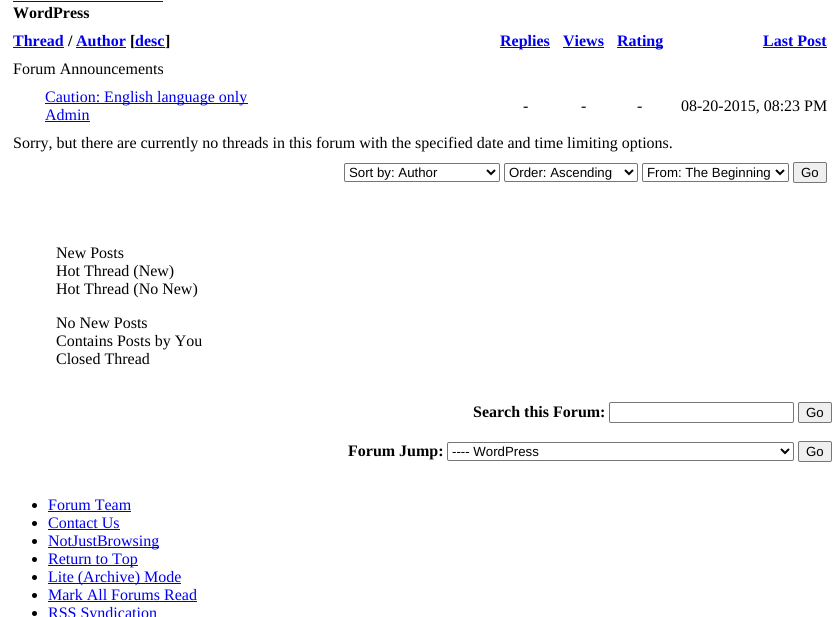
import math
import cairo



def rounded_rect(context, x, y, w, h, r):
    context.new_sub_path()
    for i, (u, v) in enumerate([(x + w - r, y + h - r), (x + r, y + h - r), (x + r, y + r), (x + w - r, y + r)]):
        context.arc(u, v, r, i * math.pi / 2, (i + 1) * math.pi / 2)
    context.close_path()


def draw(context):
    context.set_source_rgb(1, 1, 1)
    context.paint()
    context.set_source_rgb(0, 0, 238 / 255)
    context.rectangle(13, 1, 150, 1)
    context.fill()
    context.rectangle(13, 47, 51, 1)
    context.fill()
    context.rectangle(76, 47, 50, 1)
    context.fill()
    context.rectangle(135, 47, 30, 1)
    context.fill()
    context.rectangle(500, 47, 50, 1)
    context.fill()
    context.rectangle(563, 47, 41, 1)
    context.fill()
    context.rectangle(617, 47, 46, 1)
    context.fill()
    context.rectangle(763, 47, 64, 1)
    context.fill()
    context.rectangle(45, 103, 203, 1)
    context.fill()
    context.rectangle(45, 121, 45, 1)
    context.fill()
    rounded_rect(context, 344.5, 163.5, 155, 18, 1.5)
    context.set_source_rgb(118 / 255, 118 / 255, 118 / 255)
    context.set_line_width(1)
    context.stroke()
    context.new_path()
    context.move_to(487, 170)
    context.line_to(491, 174)
    context.line_to(495, 170)
    context.set_source_rgb(0, 0, 0)
    context.set_line_width(2)
    context.stroke()
    rounded_rect(context, 504.5, 163.5, 133, 18, 1.5)
    context.set_source_rgb(118 / 255, 118 / 255, 118 / 255)
    context.set_line_width(1)
    context.stroke()
    context.new_path()
    context.move_to(625, 170)
    context.line_to(629, 174)
    context.line_to(633, 170)
    context.set_source_rgb(0, 0, 0)
    context.set_line_width(2)
    context.stroke()
    rounded_rect(context, 642.5, 163.5, 146, 18, 1.5)
    context.set_source_rgb(118 / 255, 118 / 255, 118 / 255)
    context.set_line_width(1)
    context.stroke()
    context.new_path()
    context.move_to(776, 170)
    context.line_to(780, 174)
    context.line_to(784, 170)
    context.set_source_rgb(0, 0, 0)
    context.set_line_width(2)
    context.stroke()
    context.set_source_rgb(239 / 255, 239 / 255, 239 / 255)
    rounded_rect(context, 793.5, 162.5, 33, 20, 1.5)
    context.fill_preserve()
    context.set_source_rgb(118 / 255, 118 / 255, 118 / 255)
    context.set_line_width(1)
    context.stroke()
    rounded_rect(context, 609.5, 402.5, 184, 20, 1.5)
    context.stroke()
    context.set_source_rgb(239 / 255, 239 / 255, 239 / 255)
    rounded_rect(context, 798.5, 402.5, 33, 20, 1.5)
    context.fill_preserve()
    context.set_source_rgb(118 / 255, 118 / 255, 118 / 255)
    context.stroke()
    rounded_rect(context, 447.5, 442.5, 346, 18, 1.5)
    context.stroke()
    context.new_path()
    context.move_to(781, 449)
    context.line_to(785, 453)
    context.line_to(789, 449)
    context.set_source_rgb(0, 0, 0)
    context.set_line_width(2)
    context.stroke()
    context.set_source_rgb(239 / 255, 239 / 255, 239 / 255)
    rounded_rect(context, 798.5, 441.5, 33, 20, 1.5)
    context.fill_preserve()
    context.set_source_rgb(118 / 255, 118 / 255, 118 / 255)
    context.set_line_width(1)
    context.stroke()
    context.set_source_rgb(0, 0, 0)
    context.arc(34.5, 505.5, 2.5, 0, 2 * math.pi)
    context.fill()
    context.set_source_rgb(0, 0, 238 / 255)
    context.rectangle(48, 511, 83, 1)
    context.fill()
    context.set_source_rgb(0, 0, 0)
    context.arc(34.5, 523.5, 2.5, 0, 2 * math.pi)
    context.fill()
    context.set_source_rgb(0, 0, 238 / 255)
    context.rectangle(48, 529, 72, 1)
    context.fill()
    context.set_source_rgb(0, 0, 0)
    context.arc(34.5, 541.5, 2.5, 0, 2 * math.pi)
    context.fill()
    context.set_source_rgb(0, 0, 238 / 255)
    context.rectangle(48, 547, 111, 1)
    context.fill()
    context.set_source_rgb(0, 0, 0)
    context.arc(34.5, 559.5, 2.5, 0, 2 * math.pi)
    context.fill()
    context.set_source_rgb(0, 0, 238 / 255)
    context.rectangle(48, 565, 90, 1)
    context.fill()
    context.set_source_rgb(0, 0, 0)
    context.arc(34.5, 577.5, 2.5, 0, 2 * math.pi)
    context.fill()
    context.set_source_rgb(0, 0, 238 / 255)
    context.rectangle(48, 583, 133, 1)
    context.fill()
    context.set_source_rgb(0, 0, 0)
    context.arc(34.5, 595.5, 2.5, 0, 2 * math.pi)
    context.fill()
    context.set_source_rgb(0, 0, 238 / 255)
    context.rectangle(48, 601, 149, 1)
    context.fill()
    context.set_source_rgb(0, 0, 0)
    context.arc(34.5, 613.5, 2.5, 0, 2 * math.pi)
    context.fill()
    context.select_font_face("Liberation Serif", cairo.FontSlant.NORMAL, cairo.FontWeight.BOLD)
    context.set_font_size(16)
    context.move_to(13, 18)
    context.show_text("WordPress")
    context.set_source_rgb(0, 0, 238 / 255)
    context.move_to(13, 46)
    context.show_text("Thread")
    context.set_source_rgb(0, 0, 0)
    context.move_to(68, 46)
    context.show_text("/")
    context.set_source_rgb(0, 0, 238 / 255)
    context.move_to(76, 46)
    context.show_text("Author")
    context.set_source_rgb(0, 0, 0)
    context.move_to(130, 46)
    context.show_text("[")
    context.set_source_rgb(0, 0, 238 / 255)
    context.move_to(135, 46)
    context.show_text("desc")
    context.set_source_rgb(0, 0, 0)
    context.move_to(165, 46)
    context.show_text("]")
    context.set_source_rgb(0, 0, 238 / 255)
    context.move_to(500, 46)
    context.show_text("Replies")
    context.move_to(563, 46)
    context.show_text("Views")
    context.move_to(617, 46)
    context.show_text("Rating")
    context.move_to(763, 46)
    context.show_text("Last Post")
    context.select_font_face("Liberation Serif")
    context.set_source_rgb(0, 0, 0)
    context.move_to(13, 74)
    context.show_text("Forum Announcements")
    context.set_source_rgb(0, 0, 238 / 255)
    context.move_to(45, 102)
    context.show_text("Caution: English language only")
    context.move_to(45, 120)
    context.show_text("Admin")
    context.set_source_rgb(0, 0, 0)
    context.move_to(523, 111)
    context.show_text("-")
    context.move_to(581, 111)
    context.show_text("-")
    context.move_to(637, 111)
    context.show_text("-")
    context.move_to(681, 111)
    context.show_text("08-20-2015, 08:23 PM")
    context.move_to(13, 148)
    context.show_text("Sorry, but there are currently no threads in this forum with the specified date and time limiting options.")
    context.select_font_face("Liberation Sans")
    context.set_font_size(13.25)
    context.move_to(349, 177)
    context.show_text("Sort by: Author")
    context.move_to(509, 177)
    context.show_text("Order: Ascending")
    context.move_to(647, 177)
    context.show_text("From: The Beginning")
    context.move_to(801, 177)
    context.show_text("Go")
    context.select_font_face("Liberation Serif")
    context.set_font_size(16)
    context.move_to(56, 258)
    context.show_text("New Posts")
    context.move_to(56, 276)
    context.show_text("Hot Thread (New)")
    context.move_to(56, 294)
    context.show_text("Hot Thread (No New)")
    context.move_to(56, 328)
    context.show_text("No New Posts")
    context.move_to(56, 346)
    context.show_text("Contains Posts by You")
    context.move_to(56, 364)
    context.show_text("Closed Thread")
    context.select_font_face("Liberation Serif", cairo.FontSlant.NORMAL, cairo.FontWeight.BOLD)
    context.move_to(473, 417)
    context.show_text("Search this Forum:")
    context.select_font_face("Liberation Sans")
    context.set_font_size(13.25)
    context.move_to(806, 417)
    context.show_text("Go")
    context.select_font_face("Liberation Serif", cairo.FontSlant.NORMAL, cairo.FontWeight.BOLD)
    context.set_font_size(16)
    context.move_to(348, 456)
    context.show_text("Forum Jump:")
    context.select_font_face("Liberation Sans")
    context.set_font_size(13.25)
    context.move_to(452, 456)
    context.show_text("---- WordPress")
    context.move_to(806, 456)
    context.show_text("Go")
    context.select_font_face("Liberation Serif")
    context.set_font_size(16)
    context.set_source_rgb(0, 0, 238 / 255)
    context.move_to(48, 510)
    context.show_text("Forum Team")
    context.move_to(48, 528)
    context.show_text("Contact Us")
    context.move_to(48, 546)
    context.show_text("NotJustBrowsing")
    context.move_to(48, 564)
    context.show_text("Return to Top")
    context.move_to(48, 582)
    context.show_text("Lite (Archive) Mode")
    context.move_to(48, 600)
    context.show_text("Mark All Forums Read")
    context.move_to(48, 618)
    context.show_text("RSS Syndication")


surface = cairo.ImageSurface(cairo.Format.RGB24, 840, 617)
context = cairo.Context(surface)
options = cairo.FontOptions()
options.set_hint_metrics(cairo.HintMetrics.OFF)
options.set_hint_style(cairo.HintStyle.NONE)
context.set_font_options(options)
context.set_miter_limit(4)
draw(context)
surface.write_to_png("out.png")
